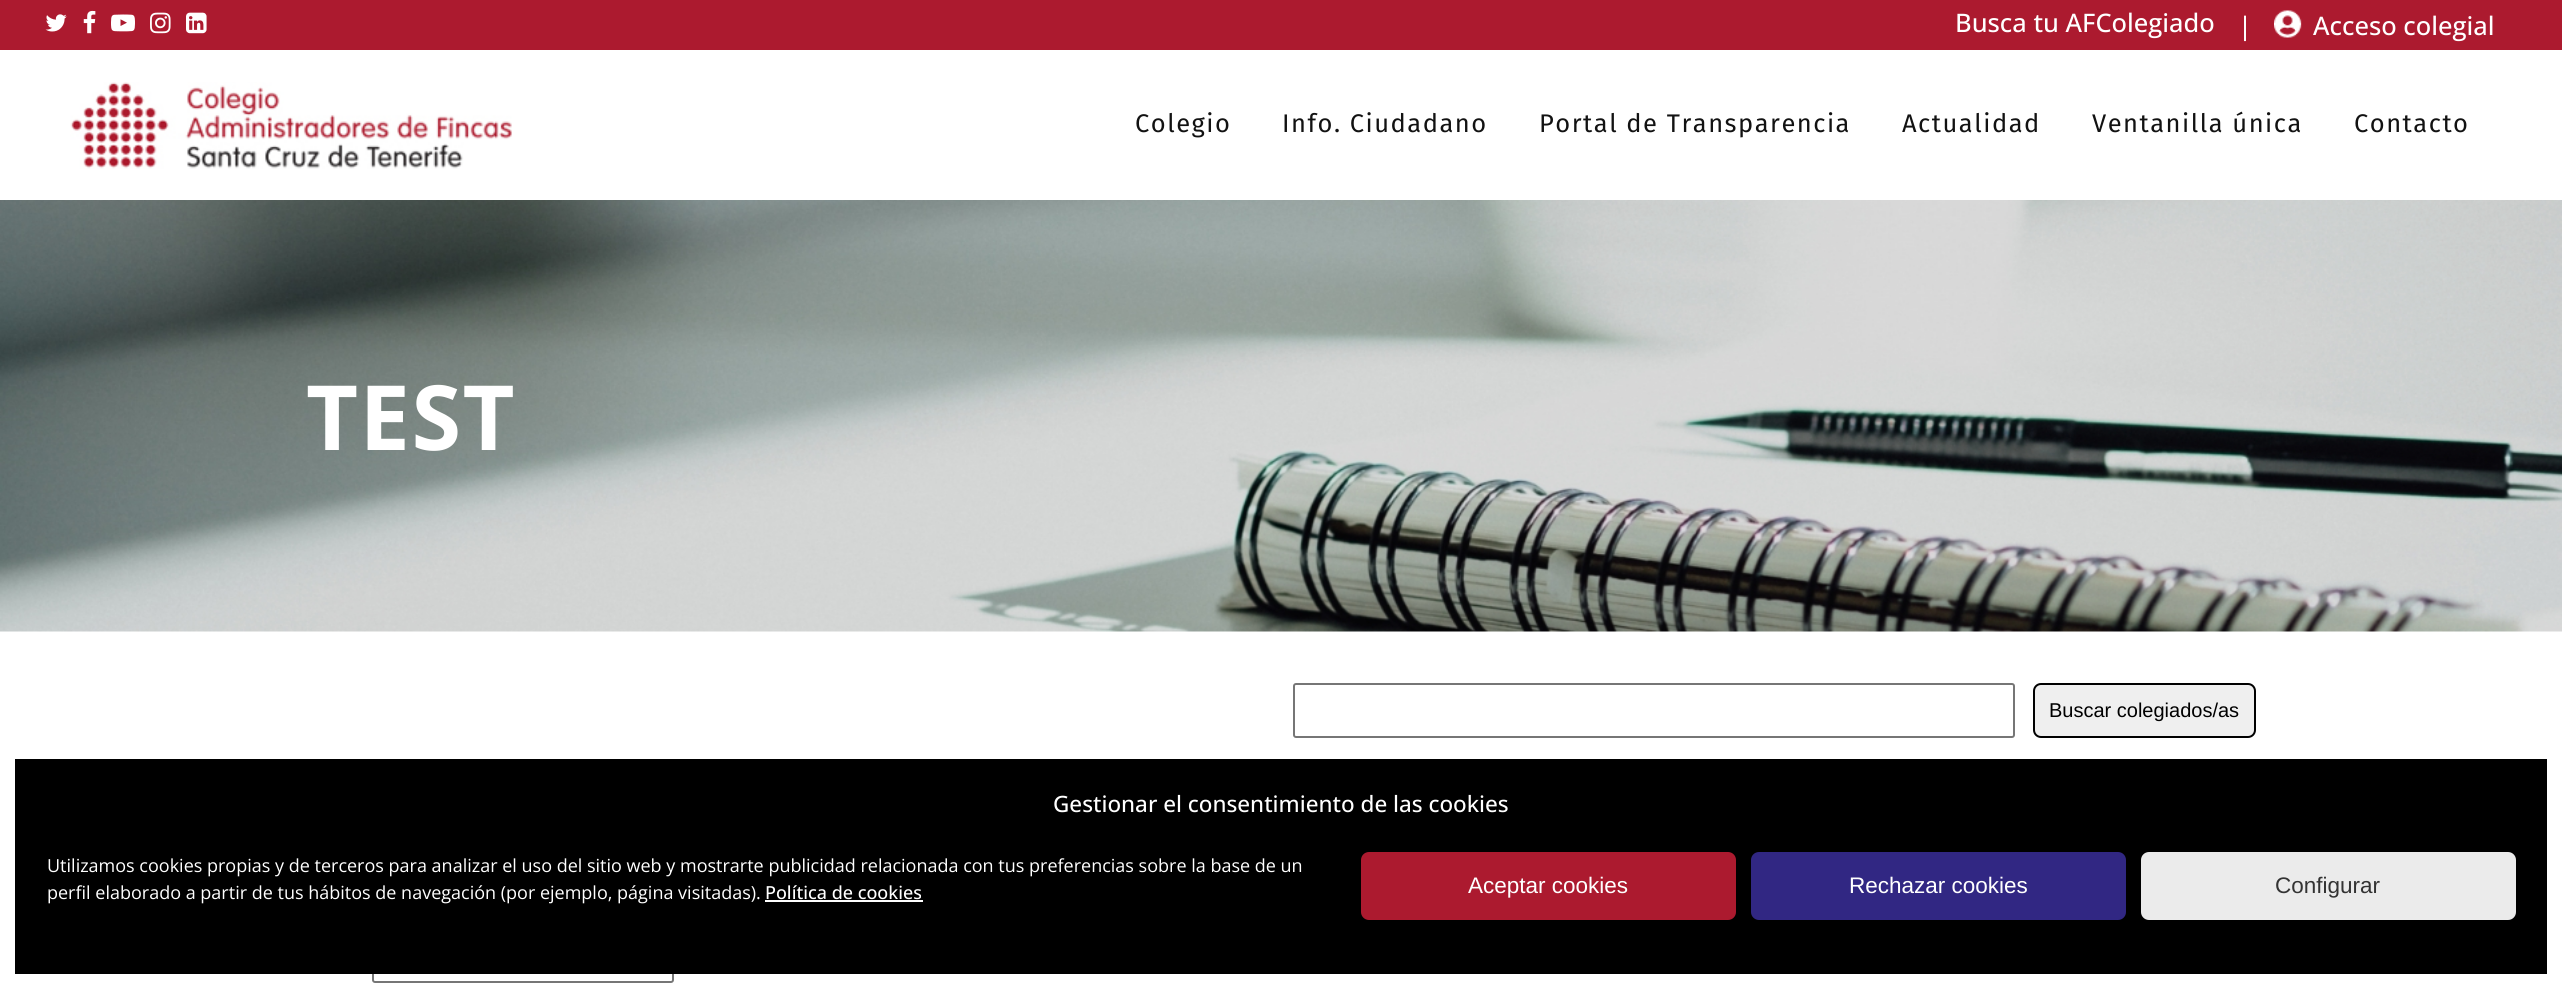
import math
import cairo



def draw_spaced(context, x, y, s, letter, word):
    context.move_to(x, y)
    for ch in s:
        context.show_text(ch)
        context.rel_move_to(letter + word * (ch == ' '), 0)


def rounded_rect(context, x, y, w, h, r):
    context.new_sub_path()
    for i, (u, v) in enumerate([(x + w - r, y + h - r), (x + r, y + h - r), (x + r, y + r), (x + w - r, y + r)]):
        context.arc(u, v, r, i * math.pi / 2, (i + 1) * math.pi / 2)
    context.close_path()


def draw_image(context, path, x, y, w, h):
    context.save()
    context.set_source_surface(cairo.ImageSurface.create_from_png(path), x, y)
    context.rectangle(x, y, w, h)
    context.fill()
    context.restore()


def draw(context):
    context.set_source_rgb(1, 1, 1)
    context.paint()
    context.set_source_rgb(172 / 255, 26 / 255, 47 / 255)
    context.rectangle(0, 0, 2562, 50)
    context.fill()
    draw_image(context, "images/1.png", 45, 14, 22, 18)
    draw_image(context, "images/2.png", 83, 10, 13, 24)
    draw_image(context, "images/3.png", 111, 14, 24, 18)
    draw_image(context, "images/4.png", 150, 12, 21, 22)
    draw_image(context, "images/5.png", 186, 12, 21, 22)
    draw_image(context, "images/6.png", 2274, 10, 28, 28)
    draw_image(context, "images/7.png", 70, 82, 442, 87)
    draw_image(context, "images/8.png", 0, 200, 2562, 432)
    rounded_rect(context, 1294, 684, 720, 53, 2)
    context.set_source_rgb(118 / 255, 118 / 255, 118 / 255)
    context.stroke()
    context.set_source_rgb(239 / 255, 239 / 255, 239 / 255)
    rounded_rect(context, 2034, 684, 221, 53, 7)
    context.fill_preserve()
    context.set_source_rgb(0, 0, 0)
    context.stroke()
    rounded_rect(context, 373, 955, 300, 27, 2)
    context.set_source_rgb(118 / 255, 118 / 255, 118 / 255)
    context.stroke()
    context.set_source_rgb(0, 0, 0)
    context.rectangle(15, 759, 2532, 215)
    context.fill()
    context.set_source_rgb(1, 1, 1)
    context.rectangle(765, 900, 158, 2)
    context.fill()
    context.set_source_rgb(172 / 255, 26 / 255, 47 / 255)
    rounded_rect(context, 1362, 853, 373, 66, 7)
    context.fill_preserve()
    context.stroke()
    context.set_source_rgb(49 / 255, 39 / 255, 131 / 255)
    rounded_rect(context, 1752, 853, 373, 66, 7)
    context.fill_preserve()
    context.stroke()
    context.set_source_rgb(235 / 255, 235 / 255, 235 / 255)
    rounded_rect(context, 2142, 853, 373, 66, 7)
    context.fill_preserve()
    context.stroke()
    context.select_font_face("Open Sans Medium")
    context.set_font_size(25.5)
    context.set_source_rgb(1, 1, 1)
    context.move_to(1955, 32)
    context.show_text("Busca tu AFColegiado")
    context.move_to(2238, 35)
    context.show_text("|")
    context.move_to(2313, 35)
    context.show_text("Acceso colegial")
    context.select_font_face("Fira Sans")
    context.set_source_rgb(18 / 255, 18 / 255, 18 / 255)
    draw_spaced(context, 1135, 132, "Colegio", 1.5, 0)
    draw_spaced(context, 1282, 132, "Info. Ciudadano", 1.5, 0)
    draw_spaced(context, 1539, 132, "Portal de Transparencia", 1.5, 0)
    draw_spaced(context, 1902, 132, "Actualidad", 1.5, 0)
    draw_spaced(context, 2092, 132, "Ventanilla única", 1.5, 0)
    draw_spaced(context, 2354, 132, "Contacto", 1.5, 0)
    context.select_font_face("Open Sans", cairo.FontSlant.NORMAL, cairo.FontWeight.BOLD)
    context.set_font_size(90)
    context.set_source_rgb(1, 1, 1)
    draw_spaced(context, 306, 450, "TEST", 1.5, 0)
    context.select_font_face("Liberation Sans")
    context.set_font_size(20)
    context.set_source_rgb(0, 0, 0)
    context.move_to(2049, 717)
    context.show_text("Buscar colegiados/as")
    context.select_font_face("Open Sans Medium")
    context.set_font_size(22.5)
    context.set_source_rgb(1, 1, 1)
    context.move_to(1053, 812)
    context.show_text("Gestionar el consentimiento de las cookies")
    context.select_font_face("Open Sans")
    context.set_font_size(18)
    context.move_to(47, 872)
    context.show_text("Utilizamos cookies propias y de terceros para analizar el uso del sitio web y mostrarte publicidad relacionada con tus preferencias sobre la base de un")
    context.move_to(47, 899)
    context.show_text("perfil elaborado a partir de tus hábitos de navegación (por ejemplo, página visitadas).")
    context.select_font_face("Open Sans Medium")
    context.move_to(765, 899)
    context.show_text("Política de cookies")
    context.select_font_face("Liberation Sans")
    context.set_font_size(22.5)
    context.move_to(1468, 893)
    context.show_text("Aceptar cookies")
    context.move_to(1849, 893)
    context.show_text("Rechazar cookies")
    context.set_source_rgb(51 / 255, 51 / 255, 51 / 255)
    context.move_to(2275, 893)
    context.show_text("Configurar")


surface = cairo.ImageSurface(cairo.Format.RGB24, 2562, 988)
context = cairo.Context(surface)
options = cairo.FontOptions()
options.set_hint_metrics(cairo.HintMetrics.OFF)
options.set_hint_style(cairo.HintStyle.NONE)
context.set_font_options(options)
context.set_miter_limit(4)
draw(context)
surface.write_to_png("out.png")
